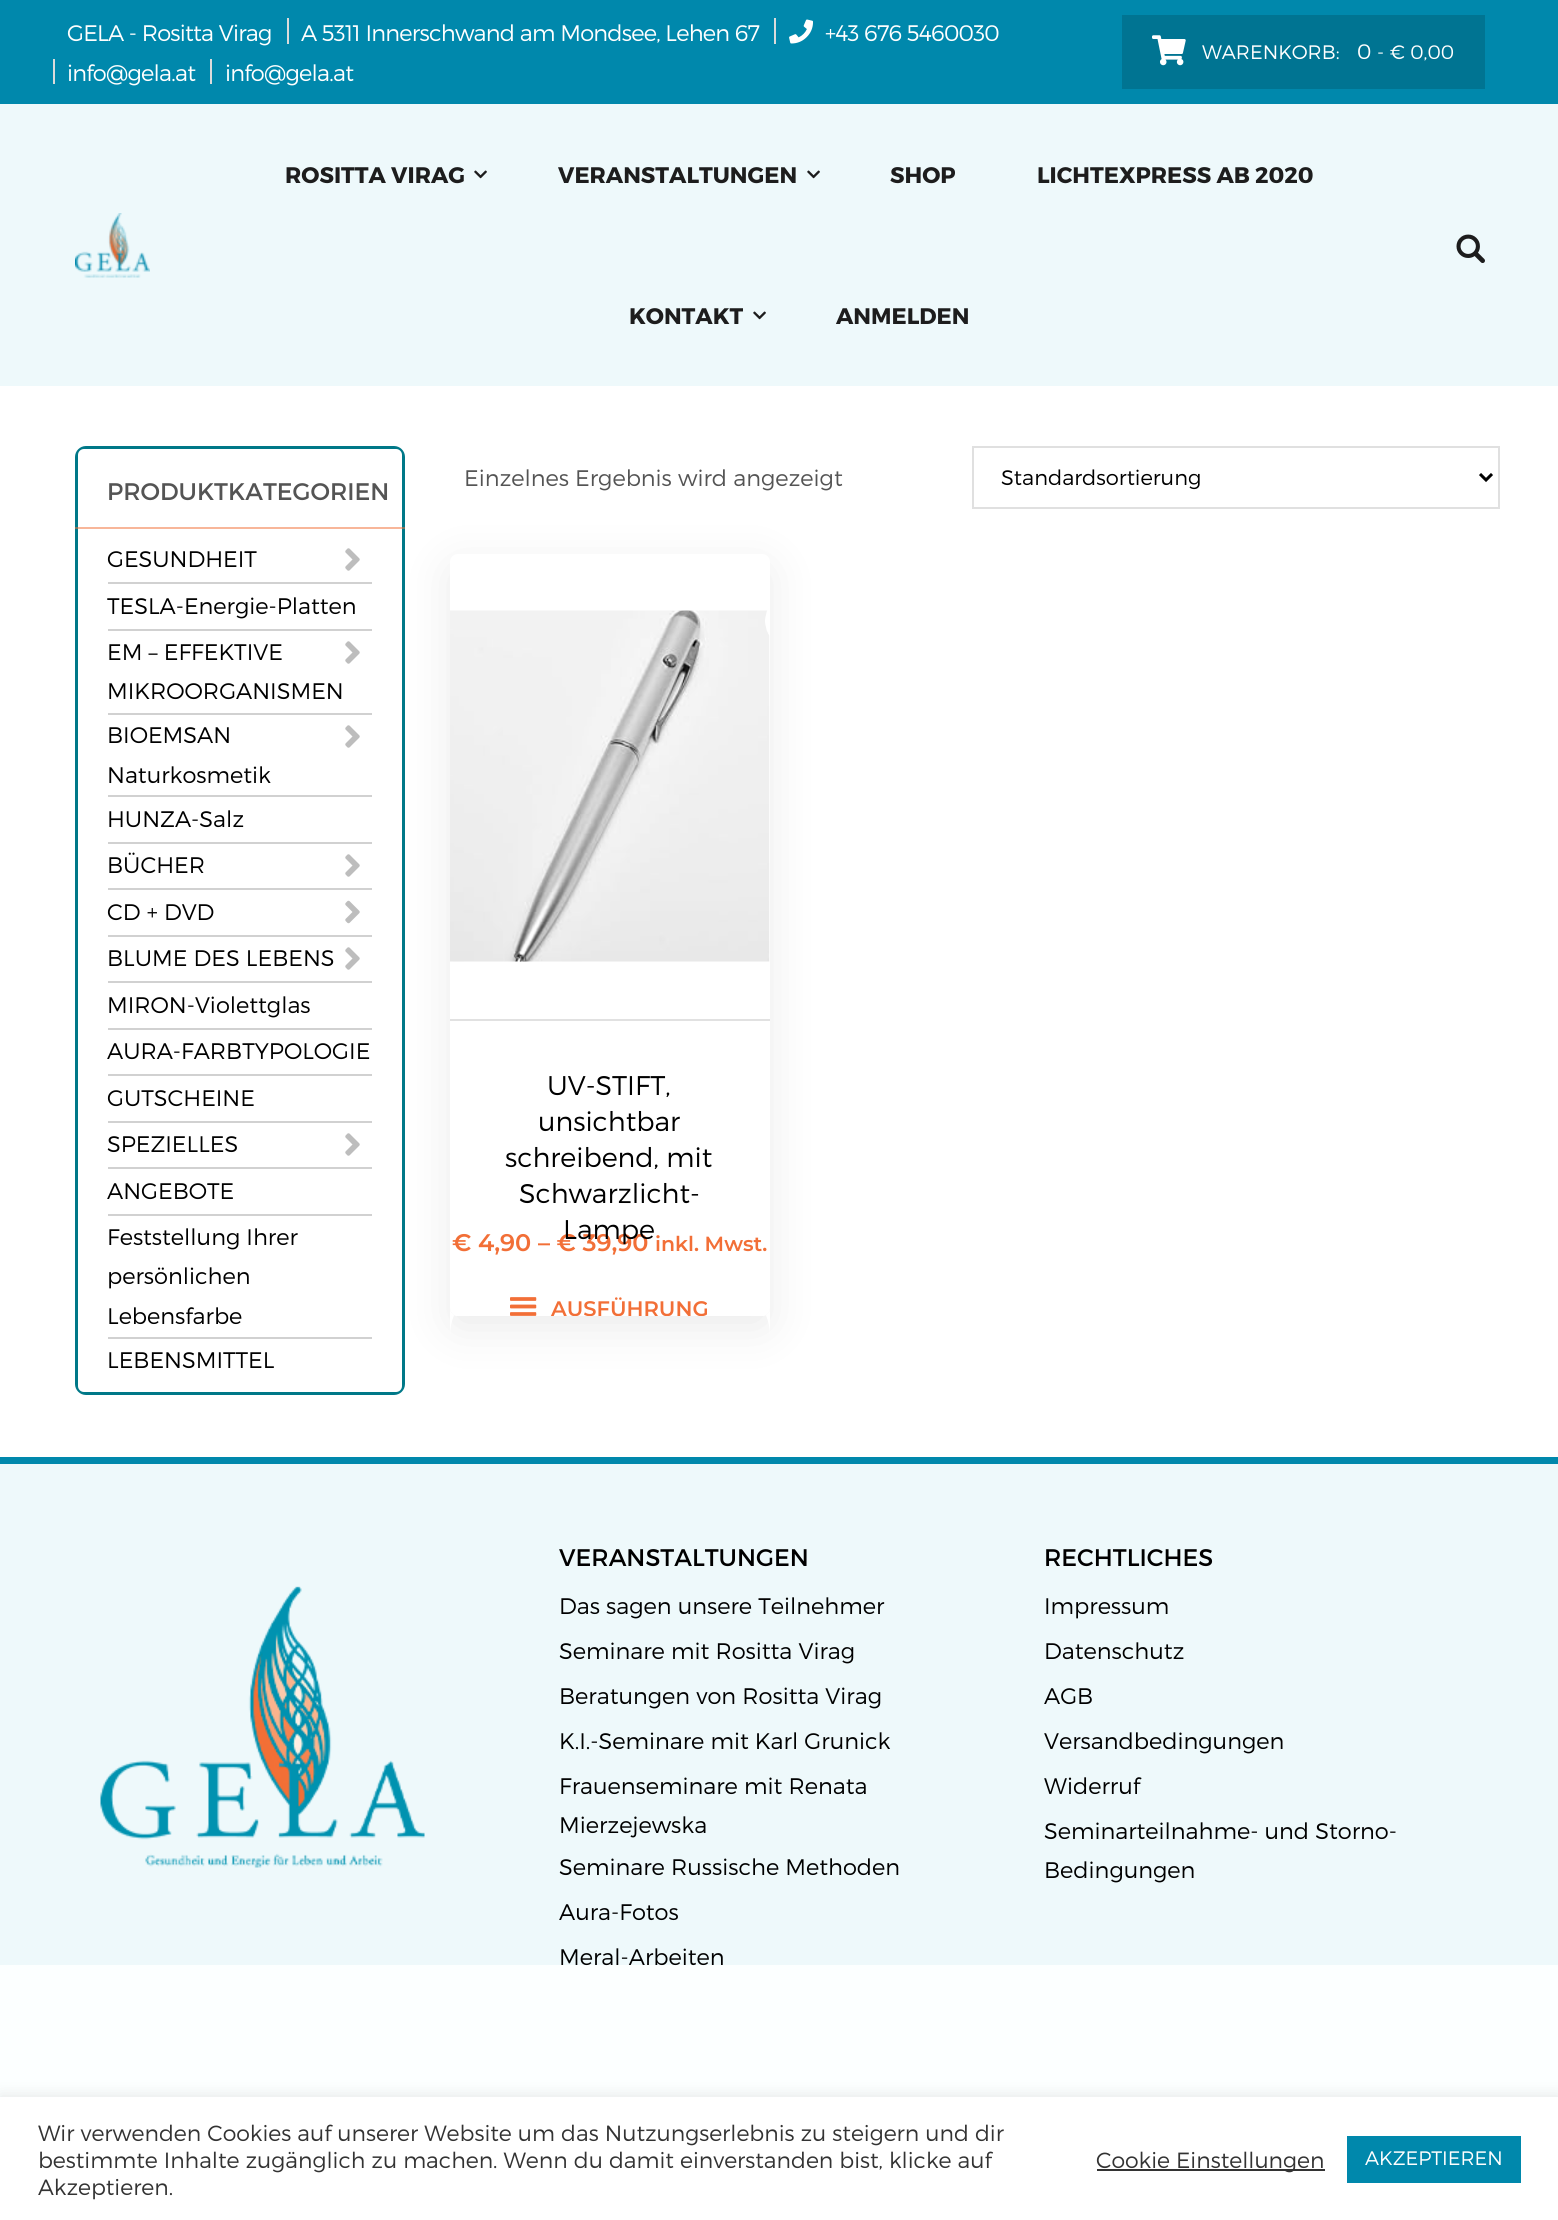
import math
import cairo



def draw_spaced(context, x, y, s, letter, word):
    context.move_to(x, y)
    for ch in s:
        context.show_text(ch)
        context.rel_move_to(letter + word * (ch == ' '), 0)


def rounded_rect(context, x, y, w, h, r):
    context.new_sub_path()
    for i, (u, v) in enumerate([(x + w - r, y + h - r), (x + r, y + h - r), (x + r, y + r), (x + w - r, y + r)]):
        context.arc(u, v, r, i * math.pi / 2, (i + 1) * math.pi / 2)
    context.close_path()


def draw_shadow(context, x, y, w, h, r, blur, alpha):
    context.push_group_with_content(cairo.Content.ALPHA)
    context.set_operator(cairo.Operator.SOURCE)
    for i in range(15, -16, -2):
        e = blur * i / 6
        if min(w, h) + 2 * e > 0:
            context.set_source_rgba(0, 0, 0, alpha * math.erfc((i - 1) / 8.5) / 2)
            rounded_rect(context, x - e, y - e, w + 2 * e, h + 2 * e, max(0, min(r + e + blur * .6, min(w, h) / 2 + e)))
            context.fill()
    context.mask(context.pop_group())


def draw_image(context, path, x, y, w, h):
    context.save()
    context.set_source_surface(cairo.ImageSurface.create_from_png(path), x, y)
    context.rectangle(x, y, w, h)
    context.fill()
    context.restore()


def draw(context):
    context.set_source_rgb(252 / 255, 1, 1)
    context.paint()
    context.set_source_rgb(0, 136 / 255, 172 / 255)
    context.rectangle(0, 0, 1558, 104)
    context.fill()
    context.set_source_rgb(219 / 255, 219 / 255, 219 / 255)
    context.rectangle(287, 18, 2, 26)
    context.fill()
    context.rectangle(774, 18, 2, 26)
    context.fill()
    draw_image(context, "images/1.png", 789, 19, 24, 25)
    context.rectangle(53, 59, 2, 25)
    context.fill()
    context.rectangle(210, 59, 2, 25)
    context.fill()
    context.set_source_rgb(0, 116 / 255, 146 / 255)
    context.rectangle(1122, 15, 363, 74)
    context.fill()
    draw_image(context, "images/2.png", 1152, 35, 34, 31)
    context.set_source_rgb(238 / 255, 249 / 255, 251 / 255)
    context.rectangle(0, 104, 1558, 282)
    context.fill()
    draw_image(context, "images/3.png", 75, 213, 75, 65)
    draw_image(context, "images/4.png", 474, 170, 13, 9)
    draw_image(context, "images/4.png", 807, 170, 13, 9)
    draw_image(context, "images/4.png", 753, 311, 13, 9)
    draw_image(context, "images/5.png", 1456, 234, 29, 29)
    context.set_source_rgb(1, 1, 1)
    context.rectangle(0, 386, 1558, 1071)
    context.fill()
    context.set_source_rgb(0, 120 / 255, 136 / 255)
    rounded_rect(context, 75, 446, 330, 949, 11)
    context.fill()
    context.set_source_rgb(123 / 255, 115 / 255, 95 / 255)
    context.rectangle(75, 527, 330, 2)
    context.fill()
    context.set_source_rgb(1, 1, 1)
    rounded_rect(context, 78, 449, 324, 943, 6)
    context.fill()
    context.set_source_rgb(248 / 255, 182 / 255, 153 / 255)
    context.rectangle(78, 527, 324, 2)
    context.fill()
    draw_image(context, "images/6.png", 345, 548, 15, 23)
    context.set_source_rgb(209 / 255, 209 / 255, 209 / 255)
    context.rectangle(108, 582, 264, 2)
    context.fill()
    context.rectangle(108, 629, 264, 2)
    context.fill()
    draw_image(context, "images/6.png", 345, 641, 15, 23)
    context.rectangle(108, 713, 264, 2)
    context.fill()
    draw_image(context, "images/6.png", 345, 725, 15, 23)
    context.rectangle(108, 795, 264, 2)
    context.fill()
    context.rectangle(108, 842, 264, 2)
    context.fill()
    draw_image(context, "images/6.png", 345, 854, 15, 23)
    context.rectangle(108, 888, 264, 2)
    context.fill()
    draw_image(context, "images/7.png", 345, 900, 15, 24)
    context.rectangle(108, 935, 264, 2)
    context.fill()
    draw_image(context, "images/6.png", 345, 947, 15, 23)
    context.rectangle(108, 981, 264, 2)
    context.fill()
    context.rectangle(108, 1028, 264, 2)
    context.fill()
    context.rectangle(108, 1074, 264, 2)
    context.fill()
    context.rectangle(108, 1121, 264, 2)
    context.fill()
    draw_image(context, "images/6.png", 345, 1133, 15, 23)
    context.rectangle(108, 1167, 264, 2)
    context.fill()
    context.rectangle(108, 1214, 264, 2)
    context.fill()
    context.rectangle(108, 1337, 264, 2)
    context.fill()
    context.rectangle(973, 447, 526, 61)
    context.set_source_rgb(224 / 255, 224 / 255, 224 / 255)
    context.stroke()
    context.new_path()
    context.move_to(1480, 474)
    context.line_to(1486, 480)
    context.line_to(1492, 474)
    context.set_source_rgb(0, 0, 0)
    context.set_line_width(3)
    context.stroke()
    context.set_source_rgb(122 / 255, 122 / 255, 122 / 255)
    draw_shadow(context, 450, 566, 320, 762, 8, 22.5, 0.15)
    context.set_source_rgb(1, 1, 1)
    rounded_rect(context, 450, 554, 320, 762, 8)
    context.fill()
    draw_image(context, "images/8.png", 450, 610, 320, 352)
    context.set_source_rgb(225 / 255, 225 / 255, 225 / 255)
    context.rectangle(450, 1019, 320, 2)
    context.fill()
    context.set_source_rgb(1, 1, 1)
    context.new_path()
    context.move_to(505, 1281)
    context.line_to(715, 1281)
    context.curve_to(745.5, 1281, 770, 1305.5, 770, 1336)
    context.line_to(770, 1308)
    context.curve_to(770, 1312.5, 766.5, 1316, 762, 1316)
    context.line_to(458, 1316)
    context.curve_to(453.5, 1316, 450, 1312.5, 450, 1308)
    context.line_to(450, 1336)
    context.curve_to(450, 1305.5, 474.5, 1281, 505, 1281)
    context.close_path()
    context.fill()
    draw_image(context, "images/9.png", 510, 1297, 27, 19)
    context.set_source_rgb(238 / 255, 249 / 255, 251 / 255)
    context.rectangle(0, 1464, 1558, 501)
    context.fill()
    context.set_source_rgb(0, 136 / 255, 172 / 255)
    context.rectangle(0, 1457, 1558, 7)
    context.fill()
    draw_image(context, "images/10.png", 100, 1586, 325, 282)
    context.set_source_rgb(172 / 255, 171 / 255, 171 / 255)
    draw_shadow(context, 0, 2096, 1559, 123, 0, 7.5, 0.3)
    context.set_source_rgb(1, 1, 1)
    context.rectangle(0, 2097, 1558, 123)
    context.fill()
    context.set_source_rgb(51 / 255, 51 / 255, 51 / 255)
    context.rectangle(1097, 2169, 228, 2)
    context.fill()
    context.set_source_rgb(0, 136 / 255, 172 / 255)
    context.rectangle(1347, 2136, 174, 47)
    context.fill()
    context.select_font_face("Montserrat Light")
    context.set_font_size(22.5)
    context.set_source_rgb(1, 1, 1)
    draw_spaced(context, 67, 41, "GELA - Rositta Virag", -0.75, 0)
    draw_spaced(context, 301, 41, "A 5311 Innerschwand am Mondsee, Lehen 67", -0.75, 0)
    draw_spaced(context, 825, 41, "+43 676 5460030", -0.75, 0)
    draw_spaced(context, 67, 81, "info@gela.at", -0.75, 0)
    draw_spaced(context, 225, 81, "info@gela.at", -0.75, 0)
    context.set_font_size(19.5)
    context.move_to(1202, 59)
    context.show_text("WARENKORB:")
    context.set_font_size(21)
    context.move_to(1357, 59)
    context.show_text("0")
    context.set_font_size(19.5)
    context.move_to(1377, 59)
    context.show_text("- € 0,00")
    context.select_font_face("Montserrat", cairo.FontSlant.NORMAL, cairo.FontWeight.BOLD)
    context.set_font_size(22.5)
    context.set_source_rgb(29 / 255, 29 / 255, 29 / 255)
    context.move_to(285, 183)
    context.show_text("ROSITTA VIRAG")
    context.move_to(558, 183)
    context.show_text("VERANSTALTUNGEN")
    context.move_to(890, 183)
    context.show_text("SHOP")
    context.move_to(1037, 183)
    context.show_text("LICHTEXPRESS AB 2020")
    context.move_to(629, 324)
    context.show_text("KONTAKT")
    context.move_to(836, 324)
    context.show_text("ANMELDEN")
    context.select_font_face("Montserrat")
    context.set_font_size(24)
    context.set_source_rgb(84 / 255, 84 / 255, 84 / 255)
    context.move_to(107, 500)
    context.show_text("PRODUKTKATEGORIEN")
    context.select_font_face("Montserrat Light")
    context.set_font_size(22.5)
    context.set_source_rgb(0, 0, 0)
    context.move_to(107, 567)
    context.show_text("GESUNDHEIT")
    context.move_to(107, 614)
    context.show_text("TESLA-Energie-Platten")
    context.move_to(107, 660)
    context.show_text("EM – EFFEKTIVE")
    context.move_to(107, 699)
    context.show_text("MIKROORGANISMEN")
    context.move_to(107, 743)
    context.show_text("BIOEMSAN")
    context.move_to(107, 783)
    context.show_text("Naturkosmetik")
    context.move_to(107, 827)
    context.show_text("HUNZA-Salz")
    context.move_to(107, 873)
    context.show_text("BÜCHER")
    context.move_to(107, 920)
    context.show_text("CD + DVD")
    context.move_to(107, 966)
    context.show_text("BLUME DES LEBENS")
    context.move_to(107, 1013)
    context.show_text("MIRON-Violettglas")
    context.move_to(107, 1059)
    context.show_text("AURA-FARBTYPOLOGIE")
    context.move_to(107, 1106)
    context.show_text("GUTSCHEINE")
    context.move_to(107, 1152)
    context.show_text("SPEZIELLES")
    context.move_to(107, 1199)
    context.show_text("ANGEBOTE")
    context.move_to(107, 1245)
    context.show_text("Feststellung Ihrer")
    context.move_to(107, 1284)
    context.show_text("persönlichen")
    context.move_to(107, 1324)
    context.show_text("Lebensfarbe")
    context.move_to(107, 1368)
    context.show_text("LEBENSMITTEL")
    context.set_source_rgb(84 / 255, 84 / 255, 84 / 255)
    context.move_to(464, 486)
    context.show_text("Einzelnes Ergebnis wird angezeigt")
    context.set_font_size(21)
    context.set_source_rgb(0, 0, 0)
    context.move_to(1001, 485)
    context.show_text("Standardsortierung")
    context.set_font_size(27)
    context.move_to(547, 1095)
    context.show_text("UV-STIFT,")
    context.move_to(538, 1131)
    context.show_text("unsichtbar")
    context.move_to(505, 1167)
    context.show_text("schreibend, mit")
    context.move_to(519, 1203)
    context.show_text("Schwarzlicht-")
    context.select_font_face("Montserrat SemiBold")
    context.set_font_size(24)
    context.set_source_rgb(242 / 255, 111 / 255, 55 / 255)
    context.move_to(452, 1251)
    context.show_text("€ 4,90 – € 39,90")
    context.select_font_face("Montserrat Light")
    context.set_font_size(27)
    context.set_source_rgb(0, 0, 0)
    context.move_to(563, 1239)
    context.show_text("Lampe")
    context.select_font_face("Montserrat SemiBold")
    context.set_font_size(20.5)
    context.set_source_rgb(242 / 255, 111 / 255, 55 / 255)
    context.move_to(655, 1251)
    context.show_text("inkl. Mwst.")
    context.save()
    rounded_rect(context, 450, 554, 320, 762, 8)
    context.clip()
    context.set_font_size(21)
    context.move_to(551, 1316)
    context.show_text("AUSFÜHRUNG")
    context.restore()
    context.select_font_face("Montserrat")
    context.set_font_size(24)
    context.set_source_rgb(0, 0, 0)
    context.move_to(559, 1566)
    context.show_text("VERANSTALTUNGEN")
    context.select_font_face("Montserrat Light")
    context.set_font_size(22.5)
    context.move_to(559, 1614)
    context.show_text("Das sagen unsere Teilnehmer")
    context.move_to(559, 1659)
    context.show_text("Seminare mit Rositta Virag")
    context.move_to(559, 1704)
    context.show_text("Beratungen von Rositta Virag")
    context.move_to(559, 1749)
    context.show_text("K.I.-Seminare mit Karl Grunick")
    context.move_to(559, 1794)
    context.show_text("Frauenseminare mit Renata")
    context.move_to(559, 1833)
    context.show_text("Mierzejewska")
    context.move_to(559, 1875)
    context.show_text("Seminare Russische Methoden")
    context.move_to(559, 1920)
    context.show_text("Aura-Fotos")
    context.move_to(559, 1965)
    context.show_text("Meral-Arbeiten")
    context.select_font_face("Montserrat")
    context.set_font_size(24)
    context.move_to(1044, 1566)
    context.show_text("RECHTLICHES")
    context.select_font_face("Montserrat Light")
    context.set_font_size(22.5)
    context.move_to(1044, 1614)
    context.show_text("Impressum")
    context.move_to(1044, 1659)
    context.show_text("Datenschutz")
    context.move_to(1044, 1704)
    context.show_text("AGB")
    context.move_to(1044, 1749)
    context.show_text("Versandbedingungen")
    context.move_to(1044, 1794)
    context.show_text("Widerruf")
    context.move_to(1044, 1839)
    context.show_text("Seminarteilnahme- und Storno-")
    context.move_to(1044, 1878)
    context.show_text("Bedingungen")
    context.set_font_size(22)
    context.set_source_rgb(51 / 255, 51 / 255, 51 / 255)
    context.move_to(38, 2141)
    context.show_text("Wir verwenden Cookies auf unserer Website um das Nutzungserlebnis zu steigern und dir")
    context.move_to(38, 2168)
    context.show_text("bestimmte Inhalte zugänglich zu machen. Wenn du damit einverstanden bist, klicke auf")
    context.move_to(38, 2195)
    context.show_text("Akzeptieren.")
    context.move_to(1096, 2168)
    context.show_text("Cookie Einstellungen")
    context.set_font_size(19.5)
    context.set_source_rgb(1, 1, 1)
    context.move_to(1365, 2165)
    context.show_text("AKZEPTIEREN")


surface = cairo.ImageSurface(cairo.Format.RGB24, 1558, 2220)
context = cairo.Context(surface)
options = cairo.FontOptions()
options.set_hint_metrics(cairo.HintMetrics.OFF)
options.set_hint_style(cairo.HintStyle.NONE)
context.set_font_options(options)
context.set_miter_limit(4)
draw(context)
surface.write_to_png("out.png")
